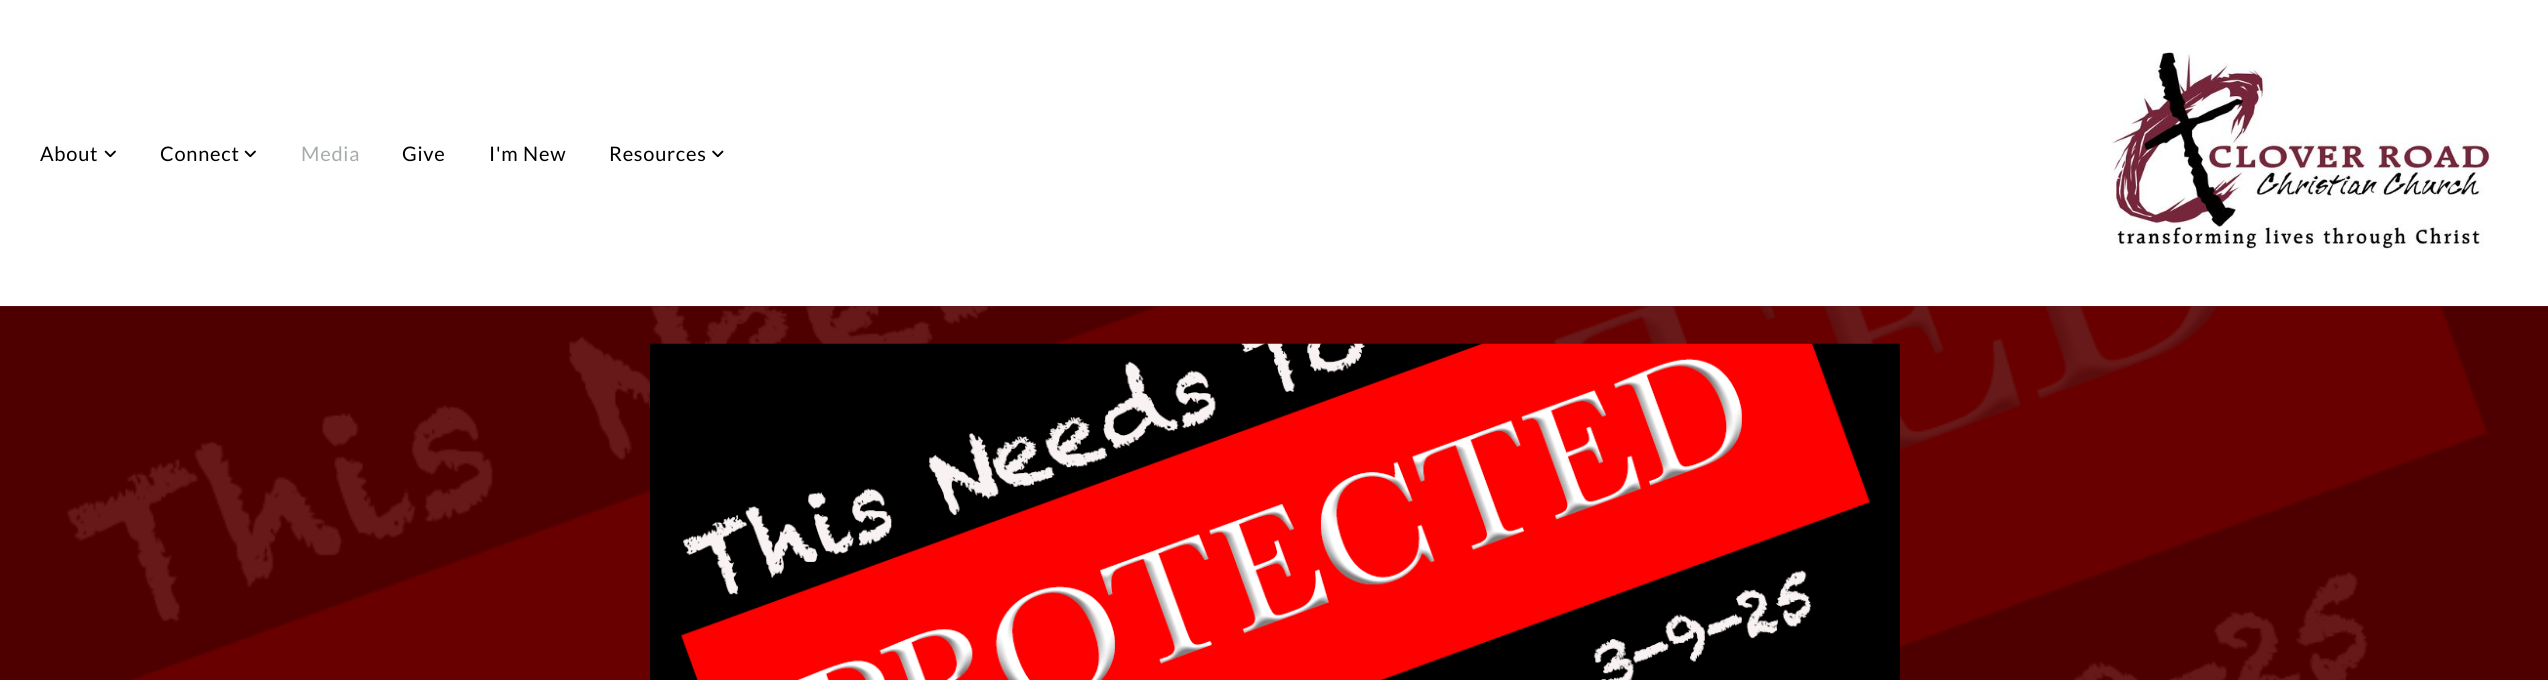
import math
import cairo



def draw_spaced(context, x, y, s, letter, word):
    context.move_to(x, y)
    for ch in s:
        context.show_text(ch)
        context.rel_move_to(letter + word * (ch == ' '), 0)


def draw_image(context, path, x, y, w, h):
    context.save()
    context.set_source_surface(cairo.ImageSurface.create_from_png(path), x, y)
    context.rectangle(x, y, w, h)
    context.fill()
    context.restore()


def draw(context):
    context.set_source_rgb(104 / 255, 25 / 255, 25 / 255)
    context.paint()
    context.set_source_rgb(1, 1, 1)
    context.rectangle(0, 0, 2548, 306)
    context.fill()
    draw_image(context, "images/1.png", 104, 150, 12, 8)
    draw_image(context, "images/1.png", 244, 150, 12, 8)
    draw_image(context, "images/2.png", 712, 150, 12, 8)
    draw_image(context, "images/3.png", 2111, 50, 385, 199)
    draw_image(context, "images/4.png", 0, 306, 2548, 374)
    draw_image(context, "images/5.png", 650, 343, 1250, 337)
    context.select_font_face("Lato")
    context.set_font_size(20)
    context.set_source_rgb(0, 0, 0)
    draw_spaced(context, 40, 161, "About", 0.75, 0)
    draw_spaced(context, 160, 161, "Connect", 0.75, 0)
    context.set_source_rgb(166 / 255, 171 / 255, 172 / 255)
    draw_spaced(context, 301, 161, "Media", 0.75, 0)
    context.set_source_rgb(0, 0, 0)
    draw_spaced(context, 402, 161, "Give", 0.75, 0)
    draw_spaced(context, 489, 161, "I'm New", 0.75, 0)
    draw_spaced(context, 609, 161, "Resources", 0.75, 0)


surface = cairo.ImageSurface(cairo.Format.RGB24, 2548, 680)
context = cairo.Context(surface)
options = cairo.FontOptions()
options.set_hint_metrics(cairo.HintMetrics.OFF)
options.set_hint_style(cairo.HintStyle.NONE)
context.set_font_options(options)
context.set_miter_limit(4)
draw(context)
surface.write_to_png("out.png")
